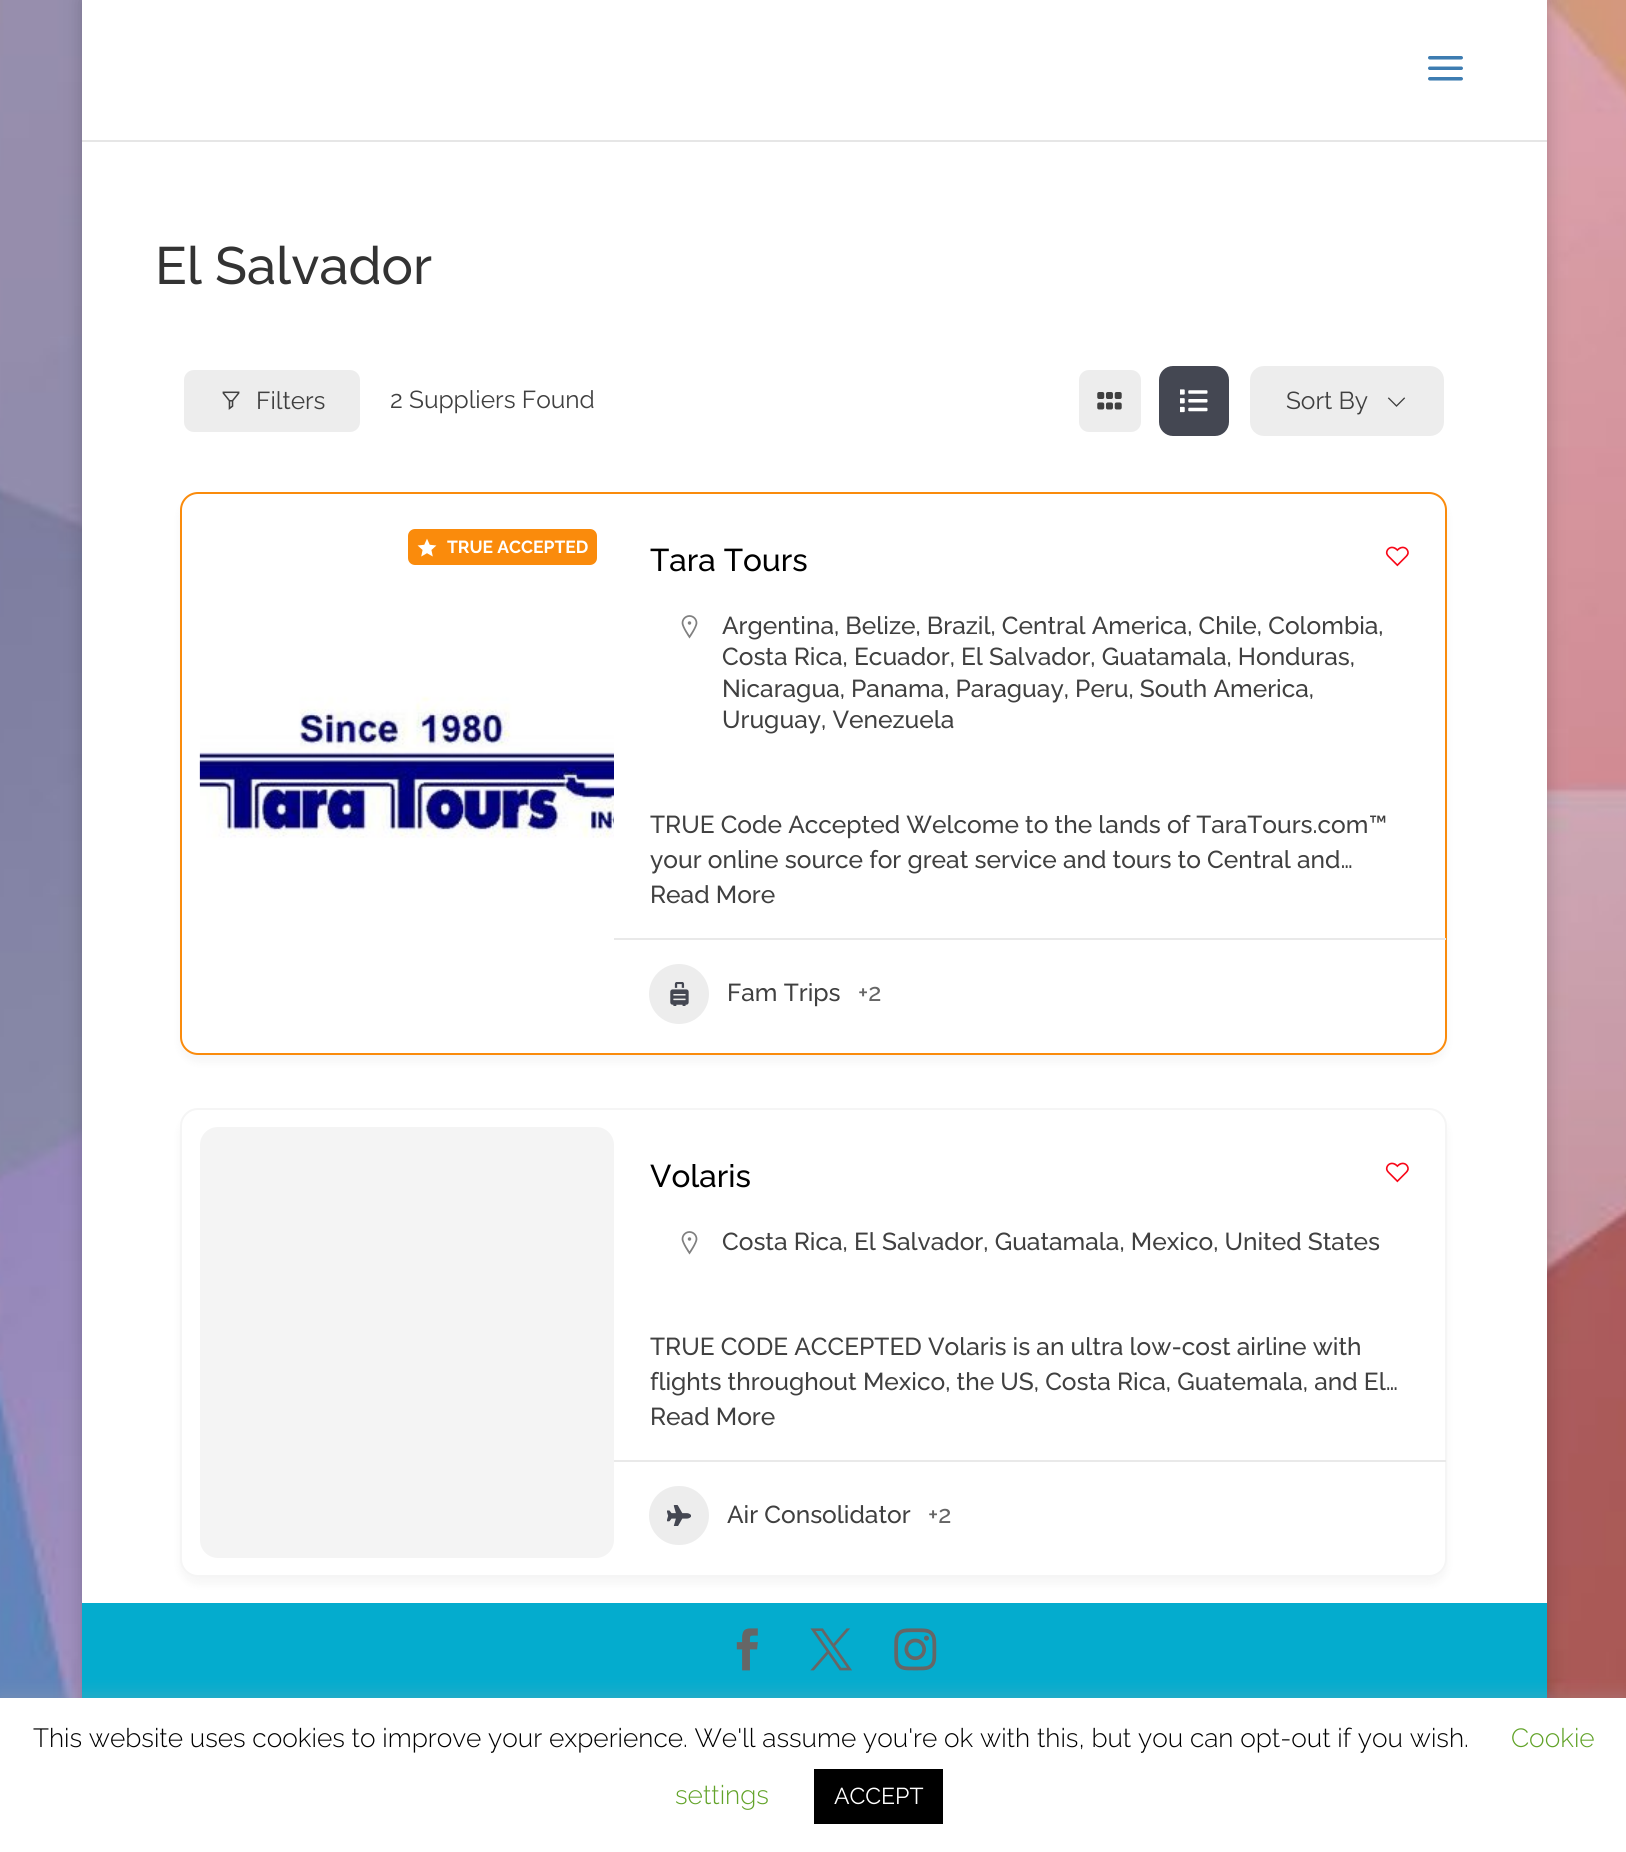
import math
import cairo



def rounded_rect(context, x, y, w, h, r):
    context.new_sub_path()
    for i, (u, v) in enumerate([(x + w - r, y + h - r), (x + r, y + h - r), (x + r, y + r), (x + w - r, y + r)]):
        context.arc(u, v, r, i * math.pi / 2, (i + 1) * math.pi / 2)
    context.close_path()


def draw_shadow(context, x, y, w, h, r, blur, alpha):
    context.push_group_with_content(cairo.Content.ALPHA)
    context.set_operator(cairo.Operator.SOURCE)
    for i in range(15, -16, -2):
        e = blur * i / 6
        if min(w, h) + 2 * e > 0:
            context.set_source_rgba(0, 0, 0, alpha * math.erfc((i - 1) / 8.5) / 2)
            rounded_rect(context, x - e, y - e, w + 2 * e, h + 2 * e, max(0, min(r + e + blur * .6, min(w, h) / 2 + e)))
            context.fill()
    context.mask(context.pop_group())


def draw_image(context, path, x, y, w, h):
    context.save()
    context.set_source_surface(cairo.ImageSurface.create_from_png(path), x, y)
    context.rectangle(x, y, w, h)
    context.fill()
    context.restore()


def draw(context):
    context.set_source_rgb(1, 1, 1)
    context.paint()
    draw_image(context, "images/1.png", 0, 0, 1626, 1698)
    context.set_source_rgb(0, 0, 0)
    draw_shadow(context, 82, 0, 1465, 1759, 0, 9, 0.2)
    context.set_source_rgb(230 / 255, 230 / 255, 230 / 255)
    context.new_path()
    context.move_to(82, 2)
    context.line_to(82, 142)
    context.line_to(1547, 142)
    context.line_to(1547, 140)
    context.line_to(82, 140)
    context.close_path()
    context.fill()
    context.set_source_rgb(1, 1, 1)
    context.rectangle(82, 0, 1465, 140)
    context.fill()
    draw_image(context, "images/2.png", 1428, 56, 35, 25)
    context.rectangle(82, 142, 1465, 1461)
    context.fill()
    context.set_source_rgb(237 / 255, 237 / 255, 237 / 255)
    rounded_rect(context, 182, 368, 180, 66, 12)
    context.fill_preserve()
    context.set_source_rgb(1, 1, 1)
    context.set_line_width(4)
    context.stroke()
    draw_image(context, "images/3.png", 222, 391, 18, 19)
    context.set_source_rgb(237 / 255, 237 / 255, 237 / 255)
    rounded_rect(context, 1077, 368, 66, 66, 12)
    context.fill_preserve()
    context.set_source_rgb(1, 1, 1)
    context.stroke()
    draw_image(context, "images/4.png", 1097, 392, 25, 18)
    context.set_source_rgb(68 / 255, 71 / 255, 82 / 255)
    rounded_rect(context, 1161, 368, 66, 66, 12)
    context.fill_preserve()
    context.stroke()
    draw_image(context, "images/5.png", 1180, 389, 28, 24)
    context.set_source_rgb(237 / 255, 237 / 255, 237 / 255)
    rounded_rect(context, 1251, 367, 192, 68, 13)
    context.fill_preserve()
    context.set_line_width(2)
    context.stroke()
    draw_image(context, "images/6.png", 1387, 397, 19, 10)
    context.set_source_rgb(0, 0, 0)
    draw_shadow(context, 180, 499, 1267, 563, 18, 5, 0.04)
    context.set_source_rgb(1, 1, 1)
    rounded_rect(context, 181, 493, 1265, 561, 17)
    context.fill_preserve()
    context.set_source_rgb(250 / 255, 139 / 255, 12 / 255)
    context.stroke()
    draw_image(context, "images/7.png", 199, 511, 415, 525)
    rounded_rect(context, 408, 529, 189, 36, 7)
    context.fill()
    draw_image(context, "images/8.png", 417, 538, 20, 19)
    draw_image(context, "images/9.png", 1385, 546, 24, 21)
    draw_image(context, "images/10.png", 681, 615, 17, 24)
    context.set_source_rgb(233 / 255, 233 / 255, 233 / 255)
    context.rectangle(614, 938, 832, 2)
    context.fill()
    context.set_source_rgb(237 / 255, 237 / 255, 237 / 255)
    context.arc(679, 994, 30, 0, 2 * math.pi)
    context.fill()
    draw_image(context, "images/11.png", 670, 982, 19, 24)
    context.set_source_rgb(0, 0, 0)
    draw_shadow(context, 180, 1115, 1267, 469, 18, 5, 0.04)
    context.set_source_rgb(1, 1, 1)
    rounded_rect(context, 181, 1109, 1265, 467, 17)
    context.fill_preserve()
    context.set_source_rgb(245 / 255, 245 / 255, 245 / 255)
    context.stroke()
    context.set_source_rgb(244 / 255, 244 / 255, 244 / 255)
    rounded_rect(context, 200, 1127, 414, 431, 18)
    context.fill()
    draw_image(context, "images/9.png", 1385, 1162, 24, 21)
    draw_image(context, "images/10.png", 681, 1231, 17, 24)
    context.set_source_rgb(233 / 255, 233 / 255, 233 / 255)
    context.rectangle(614, 1460, 832, 2)
    context.fill()
    context.set_source_rgb(237 / 255, 237 / 255, 237 / 255)
    rounded_rect(context, 649, 1486, 60, 59, 29.5)
    context.fill()
    draw_image(context, "images/12.png", 667, 1505, 24, 21)
    context.set_source_rgb(4 / 255, 172 / 255, 206 / 255)
    context.rectangle(82, 1603, 1465, 95)
    context.fill()
    draw_image(context, "images/13.png", 736, 1628, 22, 43)
    draw_image(context, "images/14.png", 810, 1628, 42, 43)
    draw_image(context, "images/15.png", 894, 1628, 43, 43)
    context.set_source_rgb(172 / 255, 171 / 255, 171 / 255)
    draw_shadow(context, 0, 1696, 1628, 156, 0, 9, 0.3)
    context.set_source_rgb(1, 1, 1)
    context.rectangle(0, 1698, 1626, 154)
    context.fill()
    context.set_source_rgb(0, 0, 0)
    context.rectangle(814, 1769, 129, 55)
    context.fill()
    context.select_font_face("Raleway Medium")
    context.set_font_size(52.5)
    context.set_source_rgb(51 / 255, 51 / 255, 51 / 255)
    context.move_to(155, 284)
    context.show_text("El Salvador")
    context.select_font_face("Raleway")
    context.set_font_size(24.5)
    context.set_source_rgb(64 / 255, 64 / 255, 64 / 255)
    context.move_to(256, 409)
    context.show_text("Filters")
    context.move_to(390, 408)
    context.show_text("2 Suppliers Found")
    context.move_to(1286, 409)
    context.show_text("Sort By")
    context.select_font_face("Raleway", cairo.FontSlant.NORMAL, cairo.FontWeight.BOLD)
    context.set_font_size(17.5)
    context.set_source_rgb(1, 1, 1)
    context.move_to(447, 553)
    context.show_text("TRUE ACCEPTED")
    context.select_font_face("Raleway Medium")
    context.set_font_size(31.5)
    context.set_source_rgb(0, 0, 0)
    context.move_to(650, 571)
    context.show_text("Tara Tours")
    context.set_font_size(24.5)
    context.set_source_rgb(64 / 255, 64 / 255, 64 / 255)
    context.move_to(722, 634)
    context.show_text("Argentina, Belize, Brazil, Central America, Chile, Colombia,")
    context.move_to(722, 665)
    context.show_text("Costa Rica, Ecuador, El Salvador, Guatamala, Honduras,")
    context.move_to(722, 697)
    context.show_text("Nicaragua, Panama, Paraguay, Peru, South America,")
    context.move_to(722, 728)
    context.show_text("Uruguay, Venezuela")
    context.move_to(650, 833)
    context.show_text("TRUE Code Accepted Welcome to the lands of TaraTours.com™")
    context.move_to(650, 868)
    context.show_text("your online source for great service and tours to Central and…")
    context.move_to(650, 903)
    context.show_text("Read More")
    context.move_to(727, 1001)
    context.show_text("Fam Trips")
    context.set_source_rgb(102 / 255, 102 / 255, 102 / 255)
    context.move_to(858, 1001)
    context.show_text("+2")
    context.set_font_size(31.5)
    context.set_source_rgb(0, 0, 0)
    context.move_to(650, 1187)
    context.show_text("Volaris")
    context.set_font_size(24.5)
    context.set_source_rgb(64 / 255, 64 / 255, 64 / 255)
    context.move_to(722, 1250)
    context.show_text("Costa Rica, El Salvador, Guatamala, Mexico, United States")
    context.move_to(650, 1355)
    context.show_text("TRUE CODE ACCEPTED Volaris is an ultra low-cost airline with")
    context.move_to(650, 1390)
    context.show_text("flights throughout Mexico, the US, Costa Rica, Guatemala, and El…")
    context.move_to(650, 1425)
    context.show_text("Read More")
    context.move_to(727, 1523)
    context.show_text("Air Consolidator")
    context.set_source_rgb(102 / 255, 102 / 255, 102 / 255)
    context.move_to(928, 1523)
    context.show_text("+2")
    context.select_font_face("Raleway Light")
    context.set_font_size(26.25)
    context.set_source_rgb(0, 0, 0)
    context.move_to(33, 1747)
    context.show_text("This website uses cookies to improve your experience. We'll assume you're ok with this, but you can opt-out if you wish.")
    context.set_source_rgb(98 / 255, 163 / 255, 41 / 255)
    context.move_to(1511, 1747)
    context.show_text("Cookie")
    context.move_to(675, 1804)
    context.show_text("settings")
    context.select_font_face("Raleway")
    context.set_font_size(23)
    context.set_source_rgb(1, 1, 1)
    context.move_to(834, 1804)
    context.show_text("ACCEPT")


surface = cairo.ImageSurface(cairo.Format.RGB24, 1626, 1852)
context = cairo.Context(surface)
options = cairo.FontOptions()
options.set_hint_metrics(cairo.HintMetrics.OFF)
options.set_hint_style(cairo.HintStyle.NONE)
context.set_font_options(options)
context.set_miter_limit(4)
draw(context)
surface.write_to_png("out.png")
